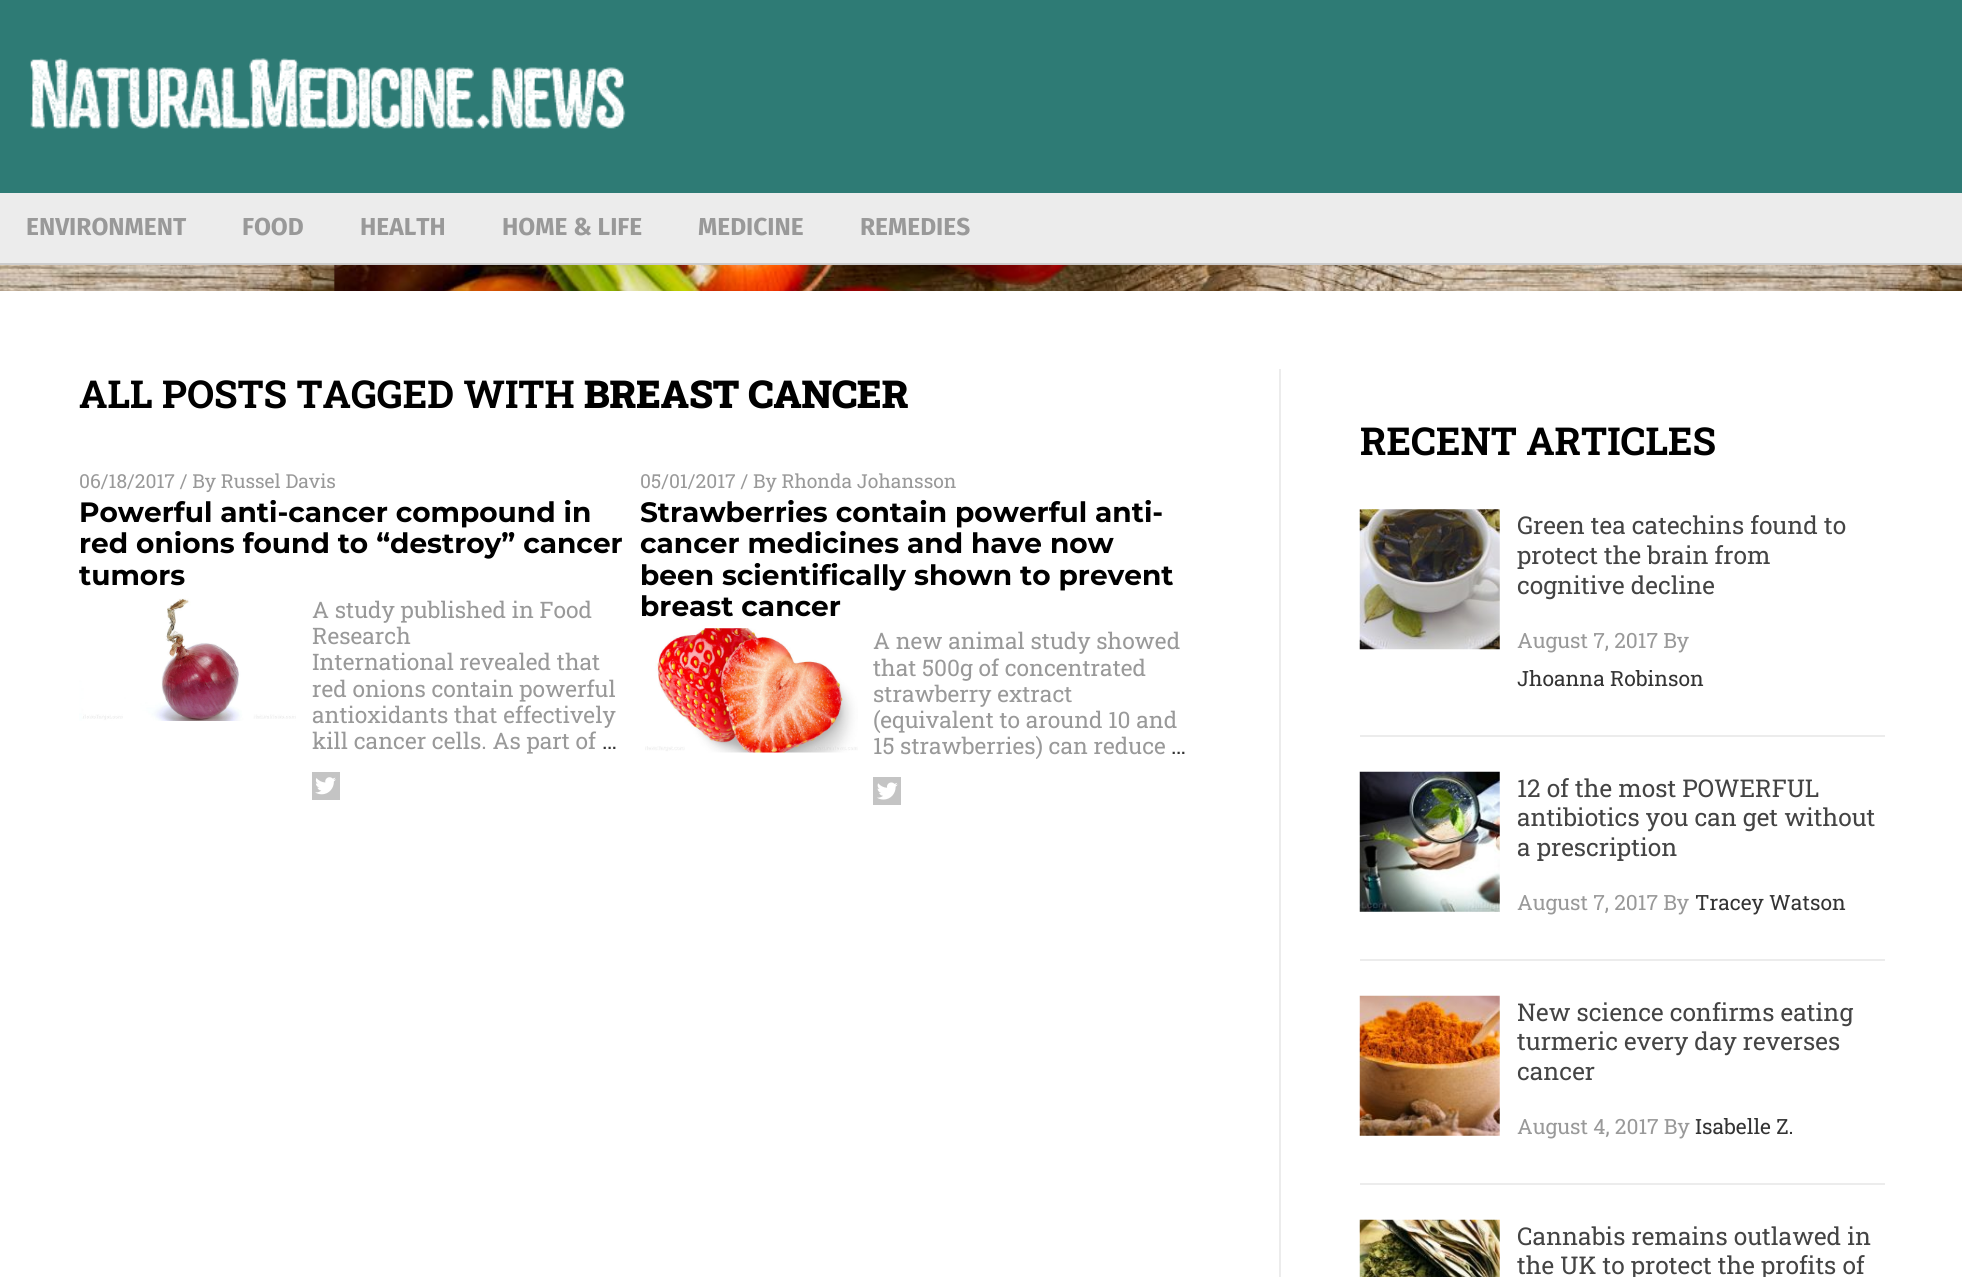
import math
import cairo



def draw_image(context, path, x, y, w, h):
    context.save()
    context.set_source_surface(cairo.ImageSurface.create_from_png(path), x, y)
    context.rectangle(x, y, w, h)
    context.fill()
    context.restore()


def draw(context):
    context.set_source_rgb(1, 1, 1)
    context.paint()
    draw_image(context, "images/1.png", 0, 265, 1962, 26)
    context.set_source_rgb(46 / 255, 123 / 255, 117 / 255)
    context.rectangle(0, 0, 1962, 193)
    context.fill()
    draw_image(context, "images/2.png", 30, 58, 596, 71)
    context.set_source_rgb(236 / 255, 236 / 255, 236 / 255)
    context.rectangle(0, 193, 1962, 70)
    context.fill()
    context.set_source_rgb(204 / 255, 204 / 255, 204 / 255)
    context.rectangle(0, 263, 1962, 2)
    context.fill()
    context.set_source_rgb(236 / 255, 236 / 255, 236 / 255)
    context.rectangle(1279, 369, 2, 908)
    context.fill()
    draw_image(context, "images/3.png", 79, 598, 217, 123)
    context.set_source_rgb(196 / 255, 196 / 255, 196 / 255)
    context.rectangle(312, 772, 28, 28)
    context.fill()
    draw_image(context, "images/4.png", 315, 777, 21, 18)
    draw_image(context, "images/5.png", 645, 628, 213, 125)
    context.rectangle(873, 777, 28, 28)
    context.fill()
    draw_image(context, "images/6.png", 877, 782, 21, 18)
    context.set_source_rgb(236 / 255, 236 / 255, 236 / 255)
    context.rectangle(1360, 735, 525, 2)
    context.fill()
    draw_image(context, "images/7.png", 1359, 509, 141, 141)
    context.rectangle(1360, 959, 525, 2)
    context.fill()
    draw_image(context, "images/8.png", 1359, 771, 141, 141)
    context.rectangle(1360, 1183, 525, 2)
    context.fill()
    draw_image(context, "images/9.png", 1359, 995, 141, 141)
    draw_image(context, "images/10.png", 1359, 1219, 141, 58)
    context.select_font_face("Fira Sans", cairo.FontSlant.NORMAL, cairo.FontWeight.BOLD)
    context.set_font_size(24.5)
    context.set_source_rgb(153 / 255, 153 / 255, 153 / 255)
    context.move_to(26, 235)
    context.show_text("ENVIRONMENT")
    context.move_to(242, 235)
    context.show_text("FOOD")
    context.move_to(360, 235)
    context.show_text("HEALTH")
    context.move_to(502, 235)
    context.show_text("HOME & LIFE")
    context.move_to(698, 235)
    context.show_text("MEDICINE")
    context.move_to(860, 235)
    context.show_text("REMEDIES")
    context.select_font_face("Roboto Slab", cairo.FontSlant.NORMAL, cairo.FontWeight.BOLD)
    context.set_font_size(38.5)
    context.set_source_rgb(0, 0, 0)
    context.move_to(79, 408)
    context.show_text("ALL POSTS TAGGED WITH")
    context.select_font_face("Roboto Slab Black")
    context.move_to(584, 408)
    context.show_text("BREAST CANCER")
    context.select_font_face("Roboto Slab")
    context.set_font_size(19.25)
    context.set_source_rgb(153 / 255, 153 / 255, 153 / 255)
    context.move_to(79, 488)
    context.show_text("06/18/2017 / By Russel Davis")
    context.select_font_face("Montserrat", cairo.FontSlant.NORMAL, cairo.FontWeight.BOLD)
    context.set_font_size(28)
    context.set_source_rgb(0, 0, 0)
    context.move_to(79, 522)
    context.show_text("Powerful anti-cancer compound in")
    context.move_to(79, 553)
    context.show_text("red onions found to “destroy” cancer")
    context.move_to(79, 585)
    context.show_text("tumors")
    context.select_font_face("Roboto Slab")
    context.set_font_size(22.75)
    context.set_source_rgb(153 / 255, 153 / 255, 153 / 255)
    context.move_to(312, 618)
    context.show_text("A study published in Food")
    context.move_to(312, 644)
    context.show_text("Research")
    context.move_to(312, 670)
    context.show_text("International revealed that")
    context.move_to(312, 697)
    context.show_text("red onions contain powerful")
    context.move_to(312, 723)
    context.show_text("antioxidants that effectively")
    context.move_to(312, 749)
    context.show_text("kill cancer cells. As part of")
    context.set_source_rgb(51 / 255, 51 / 255, 51 / 255)
    context.move_to(602, 749)
    context.show_text("…")
    context.set_font_size(19.25)
    context.set_source_rgb(153 / 255, 153 / 255, 153 / 255)
    context.move_to(640, 488)
    context.show_text("05/01/2017 / By Rhonda Johansson")
    context.select_font_face("Montserrat", cairo.FontSlant.NORMAL, cairo.FontWeight.BOLD)
    context.set_font_size(28)
    context.set_source_rgb(0, 0, 0)
    context.move_to(640, 522)
    context.show_text("Strawberries contain powerful anti-")
    context.move_to(640, 553)
    context.show_text("cancer medicines and have now")
    context.move_to(640, 585)
    context.show_text("been scientifically shown to prevent")
    context.move_to(640, 616)
    context.show_text("breast cancer")
    context.select_font_face("Roboto Slab")
    context.set_font_size(22.75)
    context.set_source_rgb(153 / 255, 153 / 255, 153 / 255)
    context.move_to(873, 649)
    context.show_text("A new animal study showed")
    context.move_to(873, 676)
    context.show_text("that 500g of concentrated")
    context.move_to(873, 702)
    context.show_text("strawberry extract")
    context.move_to(873, 728)
    context.show_text("(equivalent to around 10 and")
    context.move_to(873, 754)
    context.show_text("15 strawberries) can reduce")
    context.set_source_rgb(51 / 255, 51 / 255, 51 / 255)
    context.move_to(1171, 754)
    context.show_text("…")
    context.select_font_face("Roboto Slab", cairo.FontSlant.NORMAL, cairo.FontWeight.BOLD)
    context.set_font_size(38.5)
    context.set_source_rgb(0, 0, 0)
    context.move_to(1360, 455)
    context.show_text("RECENT ARTICLES")
    context.select_font_face("Roboto Slab")
    context.set_font_size(24.5)
    context.set_source_rgb(68 / 255, 68 / 255, 68 / 255)
    context.move_to(1517, 534)
    context.show_text("Green tea catechins found to")
    context.move_to(1517, 564)
    context.show_text("protect the brain from")
    context.move_to(1517, 594)
    context.show_text("cognitive decline")
    context.set_font_size(21)
    context.set_source_rgb(153 / 255, 153 / 255, 153 / 255)
    context.move_to(1517, 648)
    context.show_text("August 7, 2017 By")
    context.set_source_rgb(51 / 255, 51 / 255, 51 / 255)
    context.move_to(1517, 686)
    context.show_text("Jhoanna Robinson")
    context.set_font_size(24.5)
    context.set_source_rgb(68 / 255, 68 / 255, 68 / 255)
    context.move_to(1517, 797)
    context.show_text("12 of the most POWERFUL")
    context.move_to(1517, 826)
    context.show_text("antibiotics you can get without")
    context.move_to(1517, 856)
    context.show_text("a prescription")
    context.set_font_size(21)
    context.set_source_rgb(153 / 255, 153 / 255, 153 / 255)
    context.move_to(1517, 910)
    context.show_text("August 7, 2017 By")
    context.set_source_rgb(51 / 255, 51 / 255, 51 / 255)
    context.move_to(1695, 910)
    context.show_text("Tracey Watson")
    context.set_font_size(24.5)
    context.set_source_rgb(68 / 255, 68 / 255, 68 / 255)
    context.move_to(1517, 1021)
    context.show_text("New science confirms eating")
    context.move_to(1517, 1050)
    context.show_text("turmeric every day reverses")
    context.move_to(1517, 1080)
    context.show_text("cancer")
    context.set_font_size(21)
    context.set_source_rgb(153 / 255, 153 / 255, 153 / 255)
    context.move_to(1517, 1134)
    context.show_text("August 4, 2017 By")
    context.set_source_rgb(51 / 255, 51 / 255, 51 / 255)
    context.move_to(1695, 1134)
    context.show_text("Isabelle Z.")
    context.set_font_size(24.5)
    context.set_source_rgb(68 / 255, 68 / 255, 68 / 255)
    context.move_to(1517, 1245)
    context.show_text("Cannabis remains outlawed in")
    context.move_to(1517, 1274)
    context.show_text("the UK to protect the profits of")


surface = cairo.ImageSurface(cairo.Format.RGB24, 1962, 1277)
context = cairo.Context(surface)
options = cairo.FontOptions()
options.set_hint_metrics(cairo.HintMetrics.OFF)
options.set_hint_style(cairo.HintStyle.NONE)
context.set_font_options(options)
context.set_miter_limit(4)
draw(context)
surface.write_to_png("out.png")
